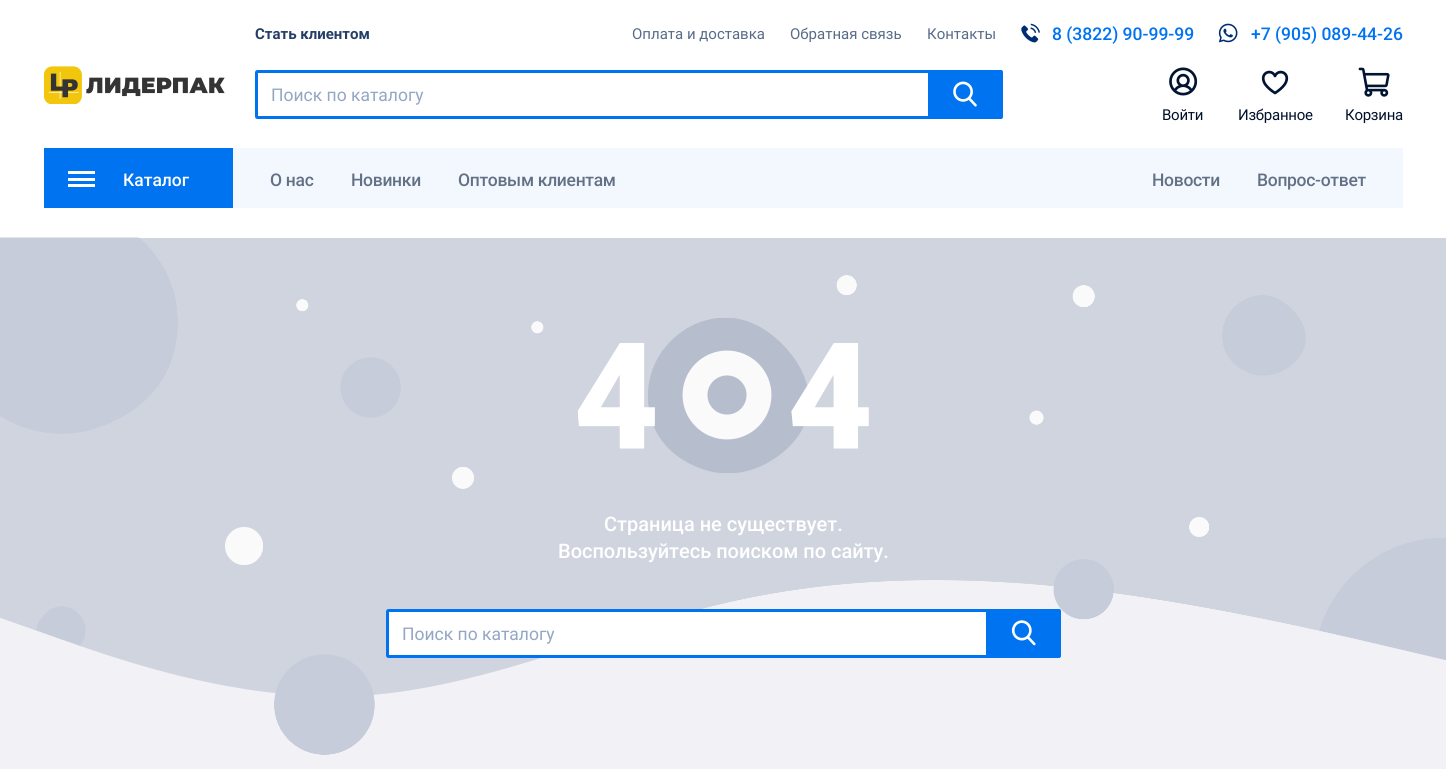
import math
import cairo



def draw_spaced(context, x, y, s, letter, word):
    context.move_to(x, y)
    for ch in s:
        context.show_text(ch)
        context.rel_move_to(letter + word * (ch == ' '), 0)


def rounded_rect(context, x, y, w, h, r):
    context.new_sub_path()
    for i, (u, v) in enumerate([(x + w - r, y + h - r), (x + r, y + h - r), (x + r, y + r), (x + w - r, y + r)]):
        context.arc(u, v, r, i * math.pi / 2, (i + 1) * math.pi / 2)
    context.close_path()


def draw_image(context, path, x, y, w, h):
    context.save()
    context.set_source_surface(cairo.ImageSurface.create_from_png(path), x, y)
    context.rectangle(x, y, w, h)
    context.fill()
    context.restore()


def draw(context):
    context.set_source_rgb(1, 1, 1)
    context.paint()
    draw_image(context, "images/1.png", 44, 66, 181, 38)
    draw_image(context, "images/2.png", 1021, 23, 19, 20)
    draw_image(context, "images/3.png", 1218, 23, 20, 20)
    rounded_rect(context, 256.5, 71.5, 745, 46, 1)
    context.set_source_rgb(0, 115 / 255, 241 / 255)
    context.set_line_width(3)
    context.stroke()
    context.new_path()
    context.move_to(928, 70)
    context.line_to(1000.5, 70)
    context.curve_to(1002, 70, 1003, 71, 1003, 72.5)
    context.line_to(1003, 116.5)
    context.curve_to(1003, 118, 1002, 119, 1000.5, 119)
    context.line_to(928, 119)
    context.close_path()
    context.fill()
    draw_image(context, "images/4.png", 953, 81, 24, 26)
    draw_image(context, "images/5.png", 1169, 67, 29, 29)
    context.new_path()
    context.move_to(1275, 93)
    context.curve_to(1271, 90.5, 1267.5, 87.5, 1265, 84)
    context.curve_to(1258.5, 73, 1271.5, 68, 1275, 76)
    context.curve_to(1278.5, 68, 1291.5, 73, 1285, 84)
    context.curve_to(1282.5, 87.5, 1279, 90.5, 1275, 93)
    context.close_path()
    context.set_source_rgb(1 / 255, 20 / 255, 49 / 255)
    context.set_line_width(2.7)
    context.set_line_cap(cairo.LineCap.ROUND)
    context.set_line_join(cairo.LineJoin.ROUND)
    context.stroke()
    draw_image(context, "images/6.png", 1358, 67, 32, 30)
    context.set_source_rgb(0, 115 / 255, 241 / 255)
    context.rectangle(44, 148, 189, 60)
    context.fill()
    context.set_source_rgb(1, 1, 1)
    context.rectangle(68, 171, 27, 3)
    context.fill()
    context.rectangle(68, 178, 27, 3)
    context.fill()
    context.rectangle(68, 184, 27, 3)
    context.fill()
    context.set_source_rgb(243 / 255, 248 / 255, 1)
    context.rectangle(233, 148, 1170, 60)
    context.fill()
    context.set_source_rgb(207 / 255, 212 / 255, 223 / 255)
    context.rectangle(0, 238, 1446, 457)
    context.fill()
    draw_image(context, "images/7.png", 0, 237, 1446, 532)
    draw_image(context, "images/8.png", 578, 318, 291, 155)
    context.set_source_rgb(1, 1, 1)
    rounded_rect(context, 387.5, 610.5, 672, 46, 1)
    context.fill_preserve()
    context.set_source_rgb(0, 115 / 255, 241 / 255)
    context.set_line_width(3)
    context.set_line_cap(cairo.LineCap.BUTT)
    context.set_line_join(cairo.LineJoin.MITER)
    context.stroke()
    context.new_path()
    context.move_to(986, 609)
    context.line_to(1058.5, 609)
    context.curve_to(1060, 609, 1061, 610, 1061, 611.5)
    context.line_to(1061, 655.5)
    context.curve_to(1061, 657, 1060, 658, 1058.5, 658)
    context.line_to(986, 658)
    context.close_path()
    context.fill()
    draw_image(context, "images/9.png", 1011, 620, 25, 26)
    context.select_font_face("Roboto", cairo.FontSlant.NORMAL, cairo.FontWeight.BOLD)
    context.set_font_size(15)
    context.set_source_rgb(36 / 255, 62 / 255, 103 / 255)
    context.move_to(255, 39)
    context.show_text("Стать клиентом")
    context.select_font_face("Roboto")
    context.set_source_rgb(88 / 255, 108 / 255, 138 / 255)
    context.move_to(632, 39)
    context.show_text("Оплата и доставка")
    context.move_to(790, 39)
    context.show_text("Обратная связь")
    context.move_to(927, 39)
    context.show_text("Контакты")
    context.select_font_face("Roboto Medium")
    context.set_font_size(17.5)
    context.set_source_rgb(0, 115 / 255, 241 / 255)
    context.move_to(1052, 40)
    context.show_text("8 (3822) 90-99-99")
    context.move_to(1251, 40)
    context.show_text("+7 (905) 089-44-26")
    context.select_font_face("Roboto")
    context.set_source_rgb(147 / 255, 166 / 255, 194 / 255)
    context.move_to(271, 101)
    context.show_text("Поиск по каталогу")
    context.set_font_size(15)
    context.set_source_rgb(1 / 255, 17 / 255, 41 / 255)
    draw_spaced(context, 1162, 120, "Войти", -0.25, 0)
    draw_spaced(context, 1238, 120, "Избранное", -0.25, 0)
    draw_spaced(context, 1345, 120, "Корзина", -0.25, 0)
    context.select_font_face("Roboto Medium")
    context.set_font_size(17.5)
    context.set_source_rgb(1, 1, 1)
    context.move_to(123, 186)
    context.show_text("Каталог")
    context.set_source_rgb(99 / 255, 113 / 255, 134 / 255)
    draw_spaced(context, 270, 186, "О нас", -0.3, 0)
    draw_spaced(context, 351, 186, "Новинки", -0.3, 0)
    draw_spaced(context, 458, 186, "Оптовым клиентам", -0.3, 0)
    draw_spaced(context, 1152, 186, "Новости", -0.3, 0)
    draw_spaced(context, 1257, 186, "Вопрос-ответ", -0.3, 0)
    context.set_font_size(20)
    context.set_source_rgb(1, 1, 1)
    context.move_to(604, 531)
    context.show_text("Страница не существует.")
    context.move_to(558, 558)
    context.show_text("Воспользуйтесь поиском по сайту.")
    context.select_font_face("Roboto")
    context.set_font_size(17.5)
    context.set_source_rgb(147 / 255, 166 / 255, 194 / 255)
    context.move_to(402, 640)
    context.show_text("Поиск по каталогу")


surface = cairo.ImageSurface(cairo.Format.RGB24, 1446, 769)
context = cairo.Context(surface)
options = cairo.FontOptions()
options.set_hint_metrics(cairo.HintMetrics.OFF)
options.set_hint_style(cairo.HintStyle.NONE)
context.set_font_options(options)
context.set_miter_limit(4)
draw(context)
surface.write_to_png("out.png")
